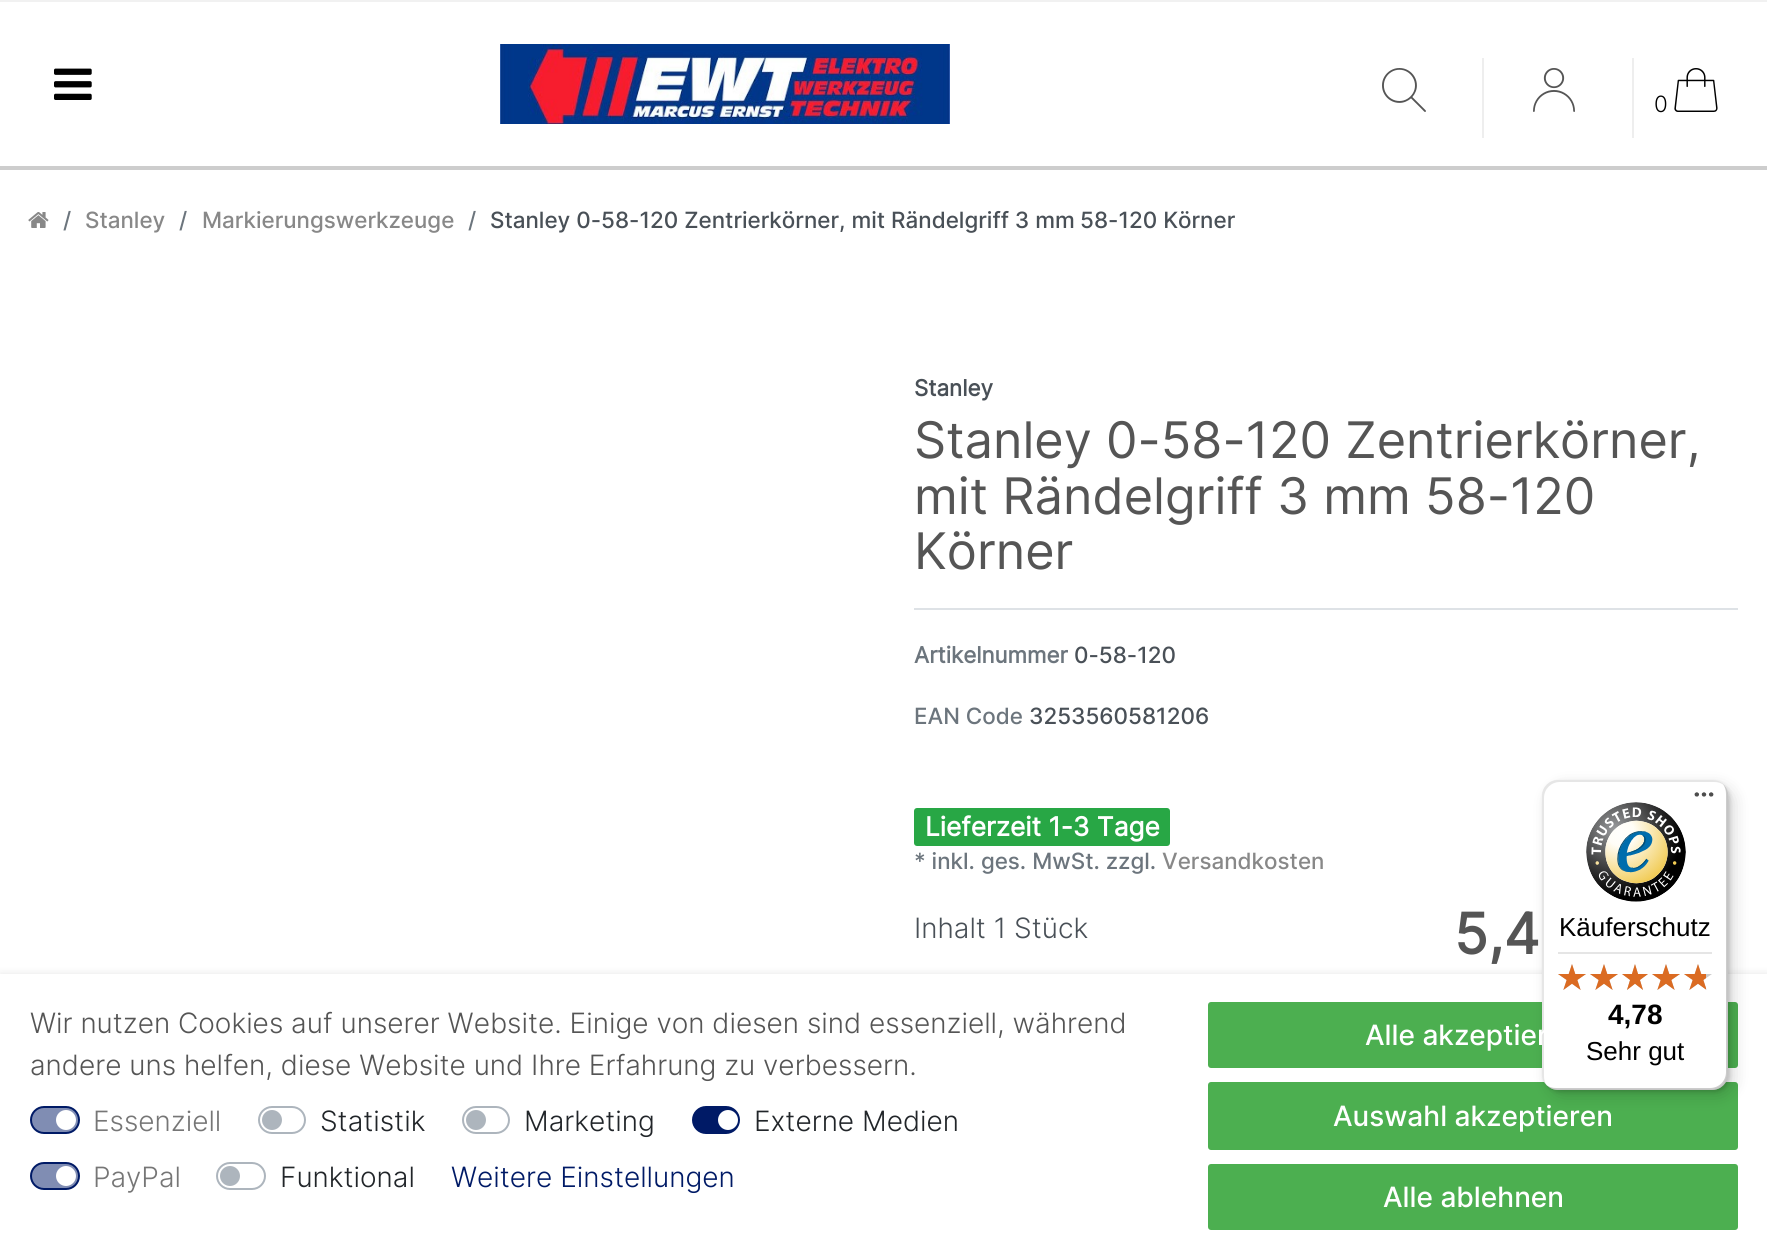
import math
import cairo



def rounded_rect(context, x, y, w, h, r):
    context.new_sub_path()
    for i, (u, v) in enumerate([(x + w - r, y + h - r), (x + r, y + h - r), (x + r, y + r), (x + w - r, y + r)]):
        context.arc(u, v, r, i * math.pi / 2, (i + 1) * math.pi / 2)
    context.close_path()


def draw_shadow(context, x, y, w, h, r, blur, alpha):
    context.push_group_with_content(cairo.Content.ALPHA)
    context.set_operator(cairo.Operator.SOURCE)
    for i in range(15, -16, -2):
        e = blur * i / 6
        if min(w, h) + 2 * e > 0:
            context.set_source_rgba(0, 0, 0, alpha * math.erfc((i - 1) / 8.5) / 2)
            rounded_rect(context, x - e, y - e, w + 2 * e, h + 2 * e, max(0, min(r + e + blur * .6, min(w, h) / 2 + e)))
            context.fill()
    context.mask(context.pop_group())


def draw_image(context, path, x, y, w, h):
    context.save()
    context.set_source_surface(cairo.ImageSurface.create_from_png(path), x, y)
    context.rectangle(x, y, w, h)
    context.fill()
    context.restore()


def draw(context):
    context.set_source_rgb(1, 1, 1)
    context.paint()
    context.set_source_rgb(205 / 255, 205 / 255, 205 / 255)
    context.rectangle(0, 166, 1767, 4)
    context.fill()
    context.set_source_rgb(241 / 255, 241 / 255, 241 / 255)
    context.rectangle(0, 0, 1767, 2)
    context.fill()
    draw_image(context, "images/1.png", 54, 68, 38, 32)
    draw_image(context, "images/2.png", 500, 44, 450, 80)
    context.set_source_rgb(238 / 255, 238 / 255, 238 / 255)
    context.rectangle(1482, 58, 2, 80)
    context.fill()
    draw_image(context, "images/3.png", 1382, 68, 44, 44)
    context.rectangle(1632, 58, 2, 80)
    context.fill()
    draw_image(context, "images/4.png", 1533, 68, 42, 44)
    draw_image(context, "images/5.png", 1674, 68, 44, 44)
    draw_image(context, "images/6.png", 28, 212, 21, 16)
    context.set_source_rgb(222 / 255, 226 / 255, 230 / 255)
    context.rectangle(914, 608, 824, 2)
    context.fill()
    context.set_source_rgb(40 / 255, 167 / 255, 69 / 255)
    rounded_rect(context, 914, 808, 256, 38, 3)
    context.fill()
    context.set_source_rgb(0, 0, 0)
    draw_shadow(context, 0, 976, 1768, 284, 0, 5, 0.15)
    context.set_source_rgb(1, 1, 1)
    context.rectangle(0, 974, 1767, 284)
    context.fill()
    context.set_source_rgb(76 / 255, 175 / 255, 80 / 255)
    rounded_rect(context, 1209, 1003, 528, 64, 2)
    context.fill_preserve()
    context.stroke()
    rounded_rect(context, 1209, 1083, 528, 66, 2)
    context.fill_preserve()
    context.stroke()
    context.set_source_rgb(0, 0, 0)
    draw_shadow(context, 1548, 786, 186, 310, 16, 8, 0.15)
    draw_shadow(context, 1544, 782, 186, 310, 16, 2, 0.15)
    context.set_source_rgb(1, 1, 1)
    rounded_rect(context, 1542, 780, 186, 310, 16)
    context.fill()
    context.set_source_rgba(0, 0, 0, 0.1)
    context.new_path()
    context.move_to(1560, 782)
    context.line_to(1714, 782)
    context.curve_to(1718, 782, 1721, 783, 1724, 785)
    context.curve_to(1721, 782, 1717, 780, 1712, 780)
    context.line_to(1558, 780)
    context.curve_to(1549, 780, 1542, 787, 1542, 796)
    context.line_to(1542, 1074)
    context.curve_to(1542, 1079, 1544, 1083, 1547, 1086)
    context.curve_to(1545, 1083, 1544, 1080, 1544, 1076)
    context.line_to(1544, 798)
    context.curve_to(1544, 789, 1551, 782, 1560, 782)
    context.close_path()
    context.fill()
    context.set_source_rgb(128 / 255, 141 / 255, 179 / 255)
    rounded_rect(context, 31, 1107, 48, 26, 13)
    context.fill_preserve()
    context.set_source_rgb(0, 26 / 255, 102 / 255)
    context.stroke()
    context.set_source_rgb(1, 1, 1)
    context.arc(66, 1120, 10, 0, 2 * math.pi)
    context.fill()
    rounded_rect(context, 259, 1107, 46, 26, 13)
    context.set_source_rgb(173 / 255, 181 / 255, 189 / 255)
    context.stroke()
    context.arc(272, 1120, 10, 0, 2 * math.pi)
    context.fill()
    rounded_rect(context, 463, 1107, 46, 26, 13)
    context.stroke()
    context.arc(476, 1120, 10, 0, 2 * math.pi)
    context.fill()
    context.set_source_rgb(0, 26 / 255, 102 / 255)
    rounded_rect(context, 693, 1107, 46, 26, 13)
    context.fill_preserve()
    context.stroke()
    context.set_source_rgb(1, 1, 1)
    context.arc(728, 1120, 10, 0, 2 * math.pi)
    context.fill()
    context.set_source_rgb(128 / 255, 141 / 255, 179 / 255)
    rounded_rect(context, 31, 1163, 48, 26, 13)
    context.fill_preserve()
    context.set_source_rgb(0, 26 / 255, 102 / 255)
    context.stroke()
    context.set_source_rgb(1, 1, 1)
    context.arc(66, 1176, 10, 0, 2 * math.pi)
    context.fill()
    rounded_rect(context, 217, 1163, 48, 26, 13)
    context.set_source_rgb(173 / 255, 181 / 255, 189 / 255)
    context.stroke()
    context.arc(230, 1176, 10, 0, 2 * math.pi)
    context.fill()
    context.set_source_rgb(76 / 255, 175 / 255, 80 / 255)
    rounded_rect(context, 1209, 1165, 528, 64, 2)
    context.fill_preserve()
    context.stroke()
    context.select_font_face("Inter Light")
    context.set_font_size(22.4)
    context.set_source_rgb(0, 0, 0)
    context.move_to(1654, 112)
    context.show_text("0")
    context.select_font_face("Inter Medium")
    context.set_source_rgb(108 / 255, 117 / 255, 125 / 255)
    context.move_to(63, 228)
    context.show_text("/")
    context.set_source_rgb(136 / 255, 136 / 255, 136 / 255)
    context.move_to(85, 228)
    context.show_text("Stanley")
    context.set_source_rgb(108 / 255, 117 / 255, 125 / 255)
    context.move_to(179, 228)
    context.show_text("/")
    context.set_source_rgb(136 / 255, 136 / 255, 136 / 255)
    context.move_to(202, 228)
    context.show_text("Markierungswerkzeuge")
    context.set_source_rgb(108 / 255, 117 / 255, 125 / 255)
    context.move_to(468, 228)
    context.show_text("/")
    context.set_source_rgb(73 / 255, 80 / 255, 87 / 255)
    context.move_to(490, 228)
    context.show_text("Stanley 0-58-120 Zentrierkörner, mit Rändelgriff 3 mm")
    context.move_to(1080, 228)
    context.show_text("58-120 Körner")
    context.select_font_face("Inter", cairo.FontSlant.NORMAL, cairo.FontWeight.BOLD)
    context.move_to(914, 396)
    context.show_text("Stanley")
    context.select_font_face("Inter")
    context.set_font_size(50.4)
    context.set_source_rgb(85 / 255, 85 / 255, 85 / 255)
    context.move_to(914, 458)
    context.show_text("Stanley 0-58-120 Zentrierkörner,")
    context.move_to(914, 514)
    context.show_text("mit Rändelgriff 3 mm 58-120")
    context.move_to(914, 569)
    context.show_text("Körner")
    context.select_font_face("Inter", cairo.FontSlant.NORMAL, cairo.FontWeight.BOLD)
    context.set_font_size(22.4)
    context.set_source_rgb(108 / 255, 117 / 255, 125 / 255)
    context.move_to(914, 663)
    context.show_text("Artikelnummer")
    context.select_font_face("Inter Medium")
    context.set_source_rgb(73 / 255, 80 / 255, 87 / 255)
    context.move_to(1074, 663)
    context.show_text("0-58-120")
    context.set_source_rgb(108 / 255, 117 / 255, 125 / 255)
    context.move_to(914, 724)
    context.show_text("EAN Code")
    context.set_source_rgb(73 / 255, 80 / 255, 87 / 255)
    context.move_to(1029, 724)
    context.show_text("3253560581206")
    context.select_font_face("Inter", cairo.FontSlant.NORMAL, cairo.FontWeight.BOLD)
    context.set_font_size(26.25)
    context.set_source_rgb(1, 1, 1)
    context.move_to(925, 836)
    context.show_text("Lieferzeit 1-3 Tage")
    context.select_font_face("Inter Medium")
    context.set_font_size(22.4)
    context.set_source_rgb(108 / 255, 117 / 255, 125 / 255)
    context.move_to(914, 869)
    context.show_text("* inkl. ges. MwSt. zzgl.")
    context.set_source_rgb(136 / 255, 136 / 255, 136 / 255)
    context.move_to(1162, 869)
    context.show_text("Versandkosten")
    context.select_font_face("Inter Light")
    context.set_font_size(28)
    context.set_source_rgb(73 / 255, 80 / 255, 87 / 255)
    context.move_to(914, 938)
    context.show_text("Inhalt 1 Stück")
    context.select_font_face("Inter", cairo.FontSlant.NORMAL, cairo.FontWeight.BOLD)
    context.set_font_size(56)
    context.set_source_rgb(85 / 255, 85 / 255, 85 / 255)
    context.move_to(1454, 954)
    context.show_text("5,4")
    context.select_font_face("Inter Light")
    context.set_font_size(28)
    context.move_to(30, 1033)
    context.show_text("Wir nutzen Cookies auf unserer Website. Einige von diesen sind essenziell, während")
    context.move_to(30, 1075)
    context.show_text("andere uns helfen, diese Website und Ihre Erfahrung zu verbessern.")
    context.set_source_rgb(118 / 255, 118 / 255, 118 / 255)
    context.move_to(93, 1131)
    context.show_text("Essenziell")
    context.set_source_rgb(33 / 255, 37 / 255, 41 / 255)
    context.move_to(320, 1131)
    context.show_text("Statistik")
    context.move_to(524, 1131)
    context.show_text("Marketing")
    context.move_to(754, 1131)
    context.show_text("Externe Medien")
    context.set_source_rgb(118 / 255, 118 / 255, 118 / 255)
    context.move_to(93, 1187)
    context.show_text("PayPal")
    context.set_source_rgb(33 / 255, 37 / 255, 41 / 255)
    context.move_to(280, 1187)
    context.show_text("Funktional")
    context.set_source_rgb(0, 26 / 255, 102 / 255)
    context.move_to(451, 1187)
    context.show_text("Weitere Einstellungen")
    context.select_font_face("Inter Medium")
    context.set_source_rgb(1, 1, 1)
    context.move_to(1365, 1045)
    context.show_text("Alle akzeptier")
    context.set_source_rgba(0, 0, 0, 0.2)
    context.new_path()
    context.move_to(1546, 1085)
    context.curve_to(1549, 1088, 1553, 1090, 1558, 1090)
    context.line_to(1712, 1090)
    context.curve_to(1721, 1090, 1728, 1083, 1728, 1074)
    context.line_to(1728, 796)
    context.curve_to(1728, 791, 1726, 787, 1723, 784)
    context.curve_to(1725, 787, 1726, 790, 1726, 794)
    context.line_to(1726, 1072)
    context.curve_to(1726, 1081, 1719, 1088, 1710, 1088)
    context.line_to(1556, 1088)
    context.curve_to(1552, 1088, 1549, 1087, 1546, 1085)
    context.close_path()
    context.fill()
    context.set_source_rgba(50 / 255, 50 / 255, 50 / 255, 0.2)
    context.new_path()
    context.move_to(1547, 1085)
    context.curve_to(1550, 1088, 1554, 1090, 1558, 1090)
    context.line_to(1712, 1090)
    context.curve_to(1721, 1090, 1728, 1083, 1728, 1074)
    context.line_to(1728, 796)
    context.curve_to(1728, 792, 1726, 788, 1723, 785)
    context.curve_to(1726, 788, 1727, 791, 1727, 795)
    context.line_to(1727, 1073)
    context.curve_to(1727, 1082, 1720, 1089, 1711, 1089)
    context.line_to(1557, 1089)
    context.curve_to(1553, 1089, 1550, 1088, 1547, 1085)
    context.close_path()
    context.fill()
    context.set_source_rgba(1, 1, 1, 0.3)
    context.new_path()
    context.move_to(1547, 1085)
    context.curve_to(1550, 1088, 1554, 1090, 1558, 1090)
    context.line_to(1712, 1090)
    context.curve_to(1721, 1090, 1728, 1083, 1728, 1074)
    context.line_to(1728, 796)
    context.curve_to(1728, 792, 1726, 788, 1723, 785)
    context.curve_to(1726, 788, 1727, 791, 1727, 795)
    context.line_to(1727, 1073)
    context.curve_to(1727, 1082, 1720, 1089, 1711, 1089)
    context.line_to(1557, 1089)
    context.curve_to(1553, 1089, 1550, 1088, 1547, 1085)
    context.close_path()
    context.fill()
    draw_image(context, "images/7.png", 1694, 792, 20, 5)
    draw_image(context, "images/9.png", 1684, 964, 28, 26)
    draw_image(context, "images/13.png", 1684, 964, 22, 26)
    draw_image(context, "images/9.png", 1652, 964, 28, 26)
    draw_image(context, "images/11.png", 1652, 964, 28, 26)
    draw_image(context, "images/10.png", 1622, 964, 26, 26)
    draw_image(context, "images/12.png", 1622, 964, 26, 26)
    draw_image(context, "images/9.png", 1590, 964, 28, 26)
    draw_image(context, "images/11.png", 1590, 964, 28, 26)
    draw_image(context, "images/9.png", 1558, 964, 28, 26)
    draw_image(context, "images/11.png", 1558, 964, 28, 26)
    context.select_font_face("Liberation Sans")
    context.set_font_size(26)
    context.set_source_rgb(0, 0, 0)
    context.move_to(1586, 1060)
    context.show_text("Sehr gut")
    context.select_font_face("Liberation Sans", cairo.FontSlant.NORMAL, cairo.FontWeight.BOLD)
    context.set_font_size(28)
    context.move_to(1608, 1024)
    context.show_text("4,78")
    context.select_font_face("Liberation Sans")
    context.set_font_size(26)
    context.move_to(1559, 936)
    context.show_text("Käuferschutz")
    draw_image(context, "images/8.png", 1586, 802, 100, 100)
    context.set_source_rgb(229 / 255, 229 / 255, 229 / 255)
    context.rectangle(1558, 952, 154, 2)
    context.fill()
    context.select_font_face("Inter Medium")
    context.set_font_size(28)
    context.set_source_rgb(1, 1, 1)
    context.move_to(1333, 1126)
    context.show_text("Auswahl akzeptieren")
    context.move_to(1383, 1207)
    context.show_text("Alle ablehnen")


surface = cairo.ImageSurface(cairo.Format.RGB24, 1767, 1258)
context = cairo.Context(surface)
options = cairo.FontOptions()
options.set_hint_metrics(cairo.HintMetrics.OFF)
options.set_hint_style(cairo.HintStyle.NONE)
context.set_font_options(options)
context.set_miter_limit(4)
draw(context)
surface.write_to_png("out.png")
